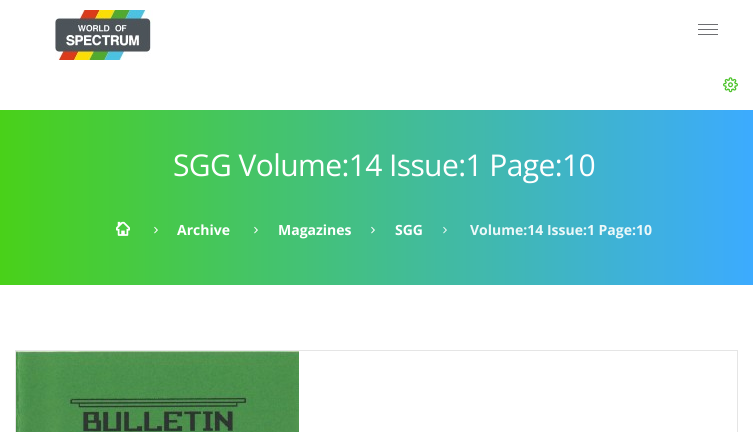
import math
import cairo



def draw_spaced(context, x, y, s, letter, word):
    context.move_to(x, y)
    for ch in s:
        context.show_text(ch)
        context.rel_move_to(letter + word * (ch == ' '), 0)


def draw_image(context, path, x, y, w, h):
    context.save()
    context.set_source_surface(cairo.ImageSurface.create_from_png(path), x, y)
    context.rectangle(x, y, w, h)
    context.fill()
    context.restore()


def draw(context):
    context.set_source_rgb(1, 1, 1)
    context.paint()
    draw_image(context, "images/1.png", 55, 10, 98, 50)
    context.set_source_rgb(109 / 255, 110 / 255, 113 / 255)
    context.rectangle(698, 29, 20, 1)
    context.fill()
    context.rectangle(698, 24, 20, 1)
    context.fill()
    context.rectangle(698, 34, 20, 1)
    context.fill()
    draw_image(context, "images/2.png", 723, 77, 15, 16)
    gradient = cairo.LinearGradient(0, 198, 753, 197)
    gradient.add_color_stop_rgba(0, 73 / 255, 209 / 255, 25 / 255, 1)
    gradient.add_color_stop_rgba(1, 60 / 255, 171 / 255, 1, 1)
    context.set_source(gradient)
    context.rectangle(0, 110, 753, 175)
    context.fill()
    draw_image(context, "images/3.png", 116, 221, 14, 15)
    draw_image(context, "images/4.png", 154, 226, 4, 8)
    draw_image(context, "images/5.png", 254, 226, 4, 8)
    draw_image(context, "images/6.png", 371, 226, 4, 8)
    draw_image(context, "images/7.png", 443, 226, 4, 8)
    context.rectangle(15.5, 350.5, 722, 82)
    context.set_source_rgb(229 / 255, 229 / 255, 229 / 255)
    context.set_line_width(1)
    context.stroke()
    draw_image(context, "images/8.png", 16, 351, 283, 81)
    context.select_font_face("Open Sans")
    context.set_font_size(30)
    context.set_source_rgb(1, 1, 1)
    draw_spaced(context, 173, 176, "SGG Volume:14 Issue:1 Page:10", -0.6, 0)
    context.select_font_face("Open Sans", cairo.FontSlant.NORMAL, cairo.FontWeight.BOLD)
    context.set_font_size(14)
    context.move_to(177, 235)
    context.show_text("Archive")
    context.move_to(278, 235)
    context.show_text("Magazines")
    context.move_to(395, 235)
    context.show_text("SGG")
    context.set_source_rgb(236 / 255, 248 / 255, 249 / 255)
    context.move_to(470, 235)
    context.show_text("Volume:14 Issue:1 Page:10")


surface = cairo.ImageSurface(cairo.Format.RGB24, 753, 432)
context = cairo.Context(surface)
options = cairo.FontOptions()
options.set_hint_metrics(cairo.HintMetrics.OFF)
options.set_hint_style(cairo.HintStyle.NONE)
context.set_font_options(options)
context.set_miter_limit(4)
draw(context)
surface.write_to_png("out.png")
